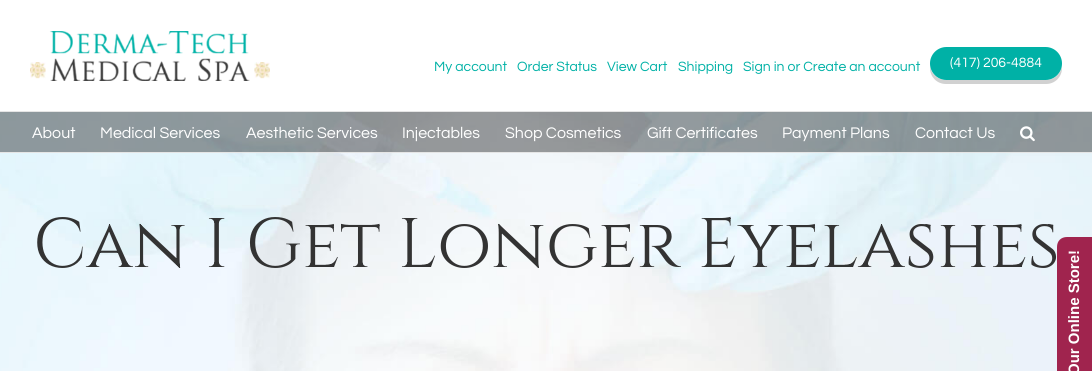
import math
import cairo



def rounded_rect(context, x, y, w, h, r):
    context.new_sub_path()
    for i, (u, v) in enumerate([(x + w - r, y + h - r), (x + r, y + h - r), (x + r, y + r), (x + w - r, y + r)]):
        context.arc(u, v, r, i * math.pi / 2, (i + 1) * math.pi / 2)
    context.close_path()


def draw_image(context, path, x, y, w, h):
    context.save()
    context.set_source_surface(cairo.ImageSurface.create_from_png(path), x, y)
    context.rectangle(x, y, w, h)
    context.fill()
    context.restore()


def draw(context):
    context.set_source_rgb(1, 1, 1)
    context.paint()
    context.set_source_rgb(229 / 255, 229 / 255, 229 / 255)
    context.rectangle(0, 111, 1092, 1)
    context.fill()
    draw_image(context, "images/1.png", 30, 31, 240, 50)
    context.set_source_rgb(209 / 255, 209 / 255, 209 / 255)
    context.new_path()
    context.move_to(930, 66)
    context.line_to(930, 68)
    context.curve_to(930, 77, 937, 84, 946, 84)
    context.line_to(1046, 84)
    context.curve_to(1055, 84, 1062, 77, 1062, 68)
    context.line_to(1062, 66)
    context.curve_to(1061, 74, 1054, 80, 1046, 80)
    context.line_to(946, 80)
    context.curve_to(938, 80, 931, 74, 930, 66)
    context.close_path()
    context.fill()
    context.set_source_rgb(0, 177 / 255, 166 / 255)
    rounded_rect(context, 930, 47, 132, 33, 16.5)
    context.fill()
    draw_image(context, "images/3.png", 0, 112, 1092, 259)
    context.set_source_rgba(0, 0, 0, 0.38)
    context.rectangle(0, 112, 1092, 40)
    context.fill()
    context.set_source_rgb(229 / 255, 229 / 255, 229 / 255)
    context.rectangle(0, 152, 1092, 1)
    context.fill()
    draw_image(context, "images/2.png", 1020, 126, 15, 16)
    context.set_source_rgb(160 / 255, 36 / 255, 78 / 255)
    context.new_path()
    context.move_to(1057, 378)
    context.line_to(1057, 247)
    context.curve_to(1057, 241, 1061, 237, 1067, 237)
    context.line_to(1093, 237)
    context.line_to(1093, 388)
    context.line_to(1067, 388)
    context.curve_to(1061, 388, 1057, 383, 1057, 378)
    context.close_path()
    context.fill()
    context.select_font_face("Questrial")
    context.set_font_size(14)
    context.set_source_rgb(0, 177 / 255, 166 / 255)
    context.move_to(434, 71)
    context.show_text("My account")
    context.move_to(517, 71)
    context.show_text("Order Status")
    context.move_to(607, 71)
    context.show_text("View Cart")
    context.move_to(678, 71)
    context.show_text("Shipping")
    context.move_to(743, 71)
    context.show_text("Sign in or Create an account")
    context.set_source_rgb(1, 1, 1)
    context.move_to(950, 67)
    context.show_text("(417) 206-4884")
    context.set_font_size(16)
    context.move_to(32, 138)
    context.show_text("About")
    context.move_to(100, 138)
    context.show_text("Medical Services")
    context.move_to(246, 138)
    context.show_text("Aesthetic Services")
    context.move_to(402, 138)
    context.show_text("Injectables")
    context.move_to(505, 138)
    context.show_text("Shop Cosmetics")
    context.move_to(647, 138)
    context.show_text("Gift Certificates")
    context.move_to(782, 138)
    context.show_text("Payment Plans")
    context.move_to(915, 138)
    context.show_text("Contact Us")
    context.select_font_face("Cinzel")
    context.set_font_size(70)
    context.set_source_rgb(51 / 255, 51 / 255, 51 / 255)
    context.move_to(33, 267)
    context.show_text("Can I Get Longer Eyelashes")
    context.select_font_face("Liberation Sans", cairo.FontSlant.NORMAL, cairo.FontWeight.BOLD)
    context.set_font_size(15)
    context.set_source_rgb(1, 1, 1)
    context.save()
    context.translate(1079, 375)
    context.rotate(-90 * math.pi / 180)
    context.move_to(0, 0)
    context.show_text("Our Online Store!")
    context.restore()


surface = cairo.ImageSurface(cairo.Format.RGB24, 1092, 371)
context = cairo.Context(surface)
options = cairo.FontOptions()
options.set_hint_metrics(cairo.HintMetrics.OFF)
options.set_hint_style(cairo.HintStyle.NONE)
context.set_font_options(options)
context.set_miter_limit(4)
draw(context)
surface.write_to_png("out.png")
